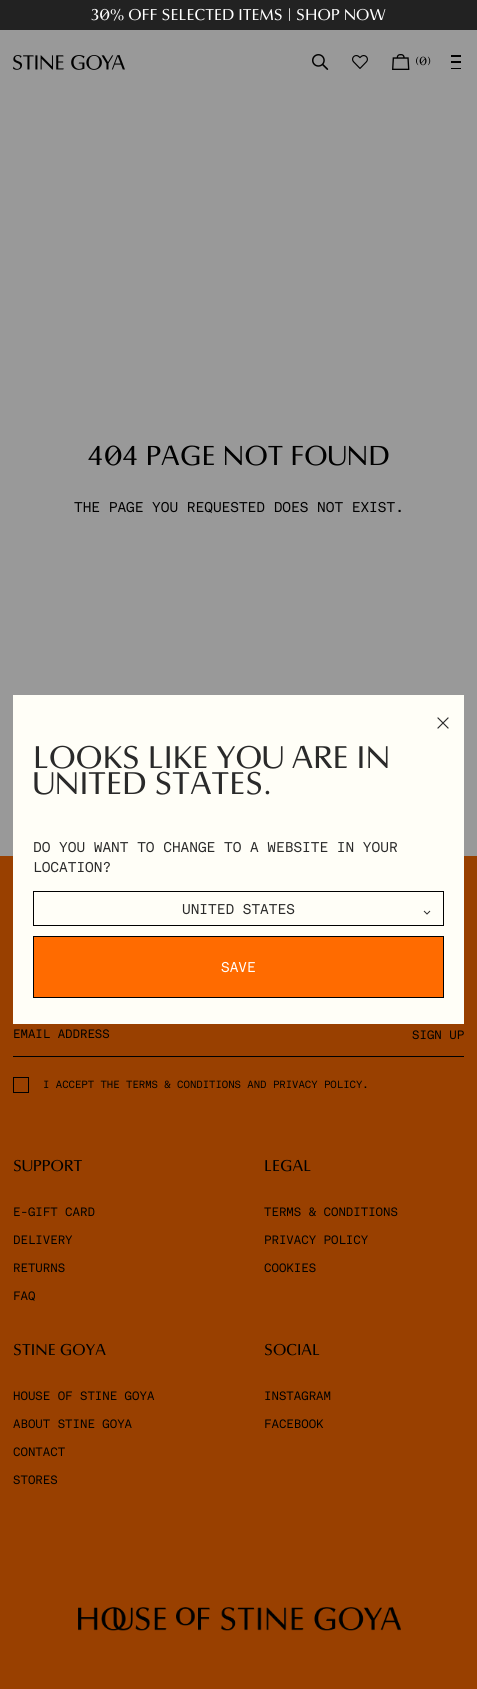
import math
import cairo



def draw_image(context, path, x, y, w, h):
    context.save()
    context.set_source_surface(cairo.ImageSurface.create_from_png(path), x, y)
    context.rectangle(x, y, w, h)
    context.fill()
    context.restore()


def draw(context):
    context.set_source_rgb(153 / 255, 153 / 255, 153 / 255)
    context.paint()
    context.set_source_rgb(34 / 255, 34 / 255, 34 / 255)
    context.rectangle(0, 0, 477, 30)
    context.fill()
    draw_image(context, "images/1.png", 13, 55, 112, 15)
    draw_image(context, "images/2.png", 312, 54, 17, 16)
    draw_image(context, "images/3.png", 352, 55, 16, 14)
    draw_image(context, "images/4.png", 392, 54, 18, 16)
    draw_image(context, "images/5.png", 451, 55, 10, 14)
    context.set_source_rgb(153 / 255, 64 / 255, 0)
    context.rectangle(0, 856, 477, 833)
    context.fill()
    context.set_source_rgb(1, 254 / 255, 247 / 255)
    context.rectangle(13, 695, 451, 329)
    context.fill()
    draw_image(context, "images/6.png", 437, 717, 12, 12)
    context.rectangle(33.5, 891.5, 410, 34)
    context.set_source_rgb(0, 0, 0)
    context.set_line_width(1)
    context.stroke()
    context.new_path()
    context.move_to(430, 911)
    context.line_to(427, 914)
    context.line_to(424, 911)
    context.set_source_rgb(42 / 255, 42 / 255, 42 / 255)
    context.stroke()
    context.set_source_rgb(1, 107 / 255, 0)
    context.rectangle(33.5, 936.5, 410, 61)
    context.fill_preserve()
    context.set_source_rgb(0, 0, 0)
    context.stroke()
    context.rectangle(13, 1056, 451, 1)
    context.fill()
    context.rectangle(13.5, 1077.5, 15, 15)
    context.stroke()
    draw_image(context, "images/7.png", 78, 1607, 323, 24)
    context.select_font_face("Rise")
    context.set_font_size(16)
    context.set_source_rgb(1, 1, 1)
    context.move_to(91, 20)
    context.show_text("30% OFF SELECTED ITEMS | SHOP NOW")
    context.set_font_size(12)
    context.set_source_rgb(0, 0, 0)
    context.move_to(415, 65)
    context.show_text("(0)")
    context.set_font_size(32)
    context.set_source_rgb(42 / 255, 42 / 255, 42 / 255)
    context.move_to(33, 768)
    context.show_text("LOOKS LIKE YOU ARE IN")
    context.move_to(33, 794)
    context.show_text("UNITED STATES.")
    context.select_font_face("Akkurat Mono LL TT")
    context.set_font_size(14)
    context.move_to(33, 852)
    context.show_text("DO YOU WANT TO CHANGE TO A WEBSITE IN YOUR")
    context.move_to(33, 872)
    context.show_text("LOCATION?")
    context.move_to(182, 914)
    context.show_text("UNITED STATES")
    context.set_source_rgb(1, 1, 1)
    context.move_to(221, 972)
    context.show_text("SAVE")
    context.select_font_face("Rise")
    context.set_font_size(28)
    context.set_source_rgb(0, 0, 0)
    context.move_to(88, 465)
    context.show_text("404 PAGE NOT FOUND")
    context.select_font_face("Akkurat Mono LL TT")
    context.set_font_size(14)
    context.move_to(74, 512)
    context.show_text("THE PAGE YOU REQUESTED DOES NOT EXIST.")
    context.set_font_size(12)
    context.move_to(13, 1038)
    context.show_text("EMAIL ADDRESS")
    context.move_to(412, 1039)
    context.show_text("SIGN UP")
    context.set_font_size(10.3)
    context.move_to(43, 1088)
    context.show_text("I ACCEPT THE TERMS & CONDITIONS AND PRIVACY POLICY.")
    context.select_font_face("Rise")
    context.set_font_size(16)
    context.move_to(13, 1171)
    context.show_text("SUPPORT")
    context.select_font_face("Akkurat Mono LL TT")
    context.set_font_size(12)
    context.move_to(13, 1216)
    context.show_text("E-GIFT CARD")
    context.move_to(13, 1244)
    context.show_text("DELIVERY")
    context.move_to(13, 1272)
    context.show_text("RETURNS")
    context.move_to(13, 1300)
    context.show_text("FAQ")
    context.select_font_face("Rise")
    context.set_font_size(16)
    context.move_to(264, 1171)
    context.show_text("LEGAL")
    context.select_font_face("Akkurat Mono LL TT")
    context.set_font_size(12)
    context.move_to(264, 1216)
    context.show_text("TERMS & CONDITIONS")
    context.move_to(264, 1244)
    context.show_text("PRIVACY POLICY")
    context.move_to(264, 1272)
    context.show_text("COOKIES")
    context.select_font_face("Rise")
    context.set_font_size(16)
    context.move_to(13, 1355)
    context.show_text("STINE GOYA")
    context.select_font_face("Akkurat Mono LL TT")
    context.set_font_size(12)
    context.move_to(13, 1400)
    context.show_text("HOUSE OF STINE GOYA")
    context.move_to(13, 1428)
    context.show_text("ABOUT STINE GOYA")
    context.move_to(13, 1456)
    context.show_text("CONTACT")
    context.move_to(13, 1484)
    context.show_text("STORES")
    context.select_font_face("Rise")
    context.set_font_size(16)
    context.move_to(264, 1355)
    context.show_text("SOCIAL")
    context.select_font_face("Akkurat Mono LL TT")
    context.set_font_size(12)
    context.move_to(264, 1400)
    context.show_text("INSTAGRAM")
    context.move_to(264, 1428)
    context.show_text("FACEBOOK")


surface = cairo.ImageSurface(cairo.Format.RGB24, 477, 1689)
context = cairo.Context(surface)
options = cairo.FontOptions()
options.set_hint_metrics(cairo.HintMetrics.OFF)
options.set_hint_style(cairo.HintStyle.NONE)
context.set_font_options(options)
context.set_miter_limit(4)
draw(context)
surface.write_to_png("out.png")
